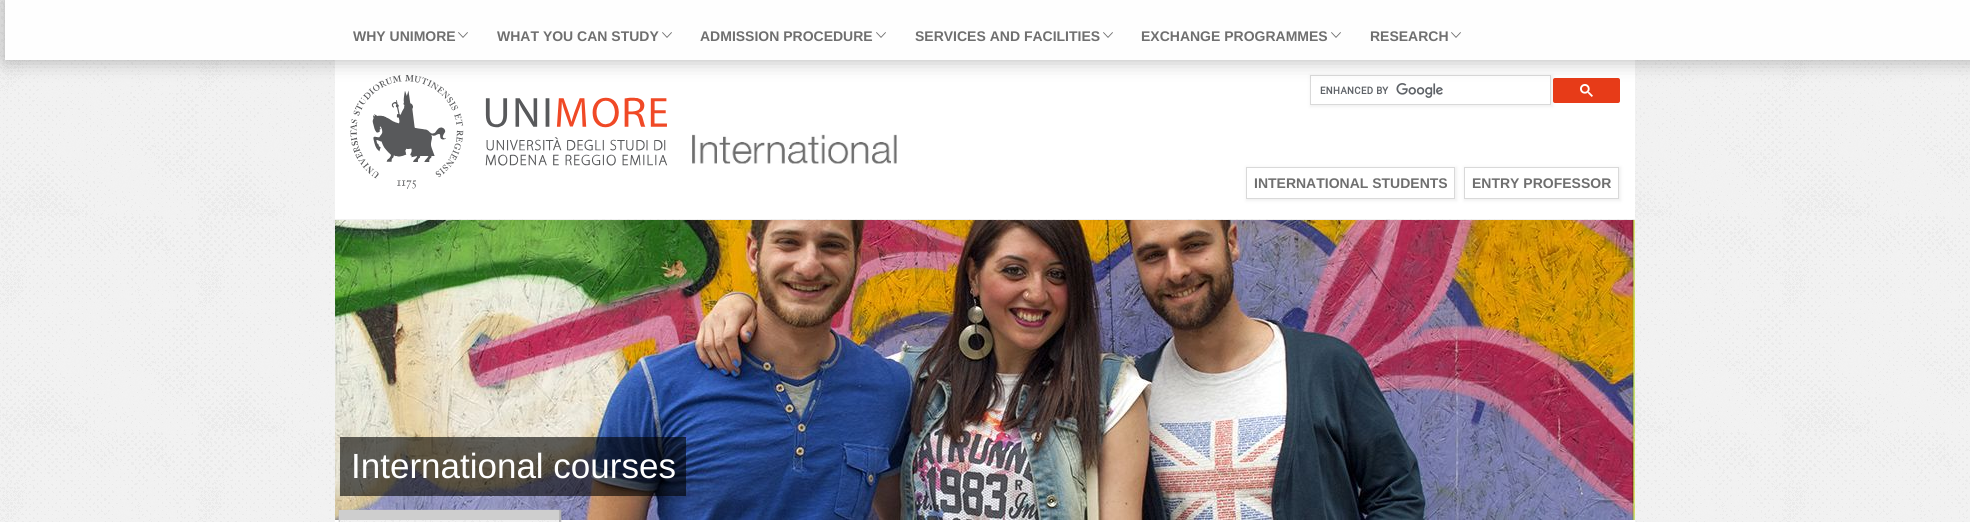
import math
import cairo



def rounded_rect(context, x, y, w, h, r):
    context.new_sub_path()
    for i, (u, v) in enumerate([(x + w - r, y + h - r), (x + r, y + h - r), (x + r, y + r), (x + w - r, y + r)]):
        context.arc(u, v, r, i * math.pi / 2, (i + 1) * math.pi / 2)
    context.close_path()


def draw_shadow(context, x, y, w, h, r, blur, alpha):
    context.push_group_with_content(cairo.Content.ALPHA)
    context.set_operator(cairo.Operator.SOURCE)
    for i in range(15, -16, -2):
        e = blur * i / 6
        if min(w, h) + 2 * e > 0:
            context.set_source_rgba(0, 0, 0, alpha * math.erfc((i - 1) / 8.5) / 2)
            rounded_rect(context, x - e, y - e, w + 2 * e, h + 2 * e, max(0, min(r + e + blur * .6, min(w, h) / 2 + e)))
            context.fill()
    context.mask(context.pop_group())


def draw_image(context, path, x, y, w, h):
    context.save()
    context.set_source_surface(cairo.ImageSurface.create_from_png(path), x, y)
    context.rectangle(x, y, w, h)
    context.fill()
    context.restore()


def draw(context):
    context.set_source_rgb(1, 1, 1)
    context.paint()
    draw_image(context, "images/1.png", 0, 0, 1970, 522)
    context.set_source_rgb(1, 1, 1)
    context.rectangle(335, 60, 1300, 159)
    context.fill()
    draw_image(context, "images/7.png", 350, 75, 318, 114)
    context.save()
    context.set_fill_rule(cairo.FillRule.EVEN_ODD)
    context.new_path()
    context.move_to(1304, 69)
    context.line_to(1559, 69)
    context.line_to(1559, 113)
    context.line_to(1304, 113)
    context.close_path()
    context.move_to(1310, 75)
    context.line_to(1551, 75)
    context.line_to(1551, 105)
    context.line_to(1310, 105)
    context.close_path()
    context.clip()
    context.set_source_rgb(241 / 255, 241 / 255, 241 / 255)
    draw_shadow(context, 1310, 75, 243, 32, 0, 1.5, 1)
    context.restore()
    context.rectangle(1310.5, 75.5, 240, 29)
    context.set_source_rgb(217 / 255, 217 / 255, 217 / 255)
    context.set_line_width(1)
    context.stroke()
    draw_image(context, "images/9.png", 1320, 83, 123, 15)
    context.set_source_rgb(231 / 255, 59 / 255, 24 / 255)
    rounded_rect(context, 1553, 78, 67, 25, 2)
    context.fill()
    draw_image(context, "images/10.png", 1580, 84, 13, 13)
    context.save()
    context.set_fill_rule(cairo.FillRule.EVEN_ODD)
    context.new_path()
    context.move_to(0, 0)
    context.line_to(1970, 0)
    context.line_to(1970, 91)
    context.line_to(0, 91)
    context.close_path()
    context.move_to(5, 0)
    context.line_to(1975, 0)
    context.line_to(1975, 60)
    context.line_to(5, 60)
    context.close_path()
    context.clip()
    context.set_source_rgb(0, 0, 0)
    draw_shadow(context, 5, 0, 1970, 60, 0, 10, 0.3)
    context.restore()
    context.set_source_rgba(1, 1, 1, 0.95)
    context.rectangle(5, 0, 1965, 60)
    context.fill()
    draw_image(context, "images/2.png", 458, 32, 10, 6)
    draw_image(context, "images/3.png", 662, 32, 10, 6)
    draw_image(context, "images/4.png", 876, 32, 10, 6)
    draw_image(context, "images/5.png", 1103, 32, 10, 6)
    draw_image(context, "images/5.png", 1331, 32, 10, 6)
    draw_image(context, "images/6.png", 1451, 32, 10, 6)
    draw_image(context, "images/8.png", 692, 134, 205, 30)
    context.save()
    context.set_fill_rule(cairo.FillRule.EVEN_ODD)
    context.new_path()
    context.move_to(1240, 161)
    context.line_to(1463, 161)
    context.line_to(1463, 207)
    context.line_to(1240, 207)
    context.close_path()
    context.move_to(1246, 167)
    context.line_to(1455, 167)
    context.line_to(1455, 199)
    context.line_to(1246, 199)
    context.close_path()
    context.clip()
    context.set_source_rgb(241 / 255, 241 / 255, 241 / 255)
    draw_shadow(context, 1246, 167, 211, 34, 0, 1.5, 1)
    context.restore()
    context.rectangle(1246.5, 167.5, 208, 31)
    context.set_source_rgb(217 / 255, 217 / 255, 217 / 255)
    context.stroke()
    context.save()
    context.set_fill_rule(cairo.FillRule.EVEN_ODD)
    context.new_path()
    context.move_to(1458, 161)
    context.line_to(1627, 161)
    context.line_to(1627, 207)
    context.line_to(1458, 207)
    context.close_path()
    context.move_to(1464, 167)
    context.line_to(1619, 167)
    context.line_to(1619, 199)
    context.line_to(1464, 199)
    context.close_path()
    context.clip()
    context.set_source_rgb(241 / 255, 241 / 255, 241 / 255)
    draw_shadow(context, 1464, 167, 157, 34, 0, 1.5, 1)
    context.restore()
    context.rectangle(1464.5, 167.5, 154, 31)
    context.stroke()
    draw_image(context, "images/11.png", 335, 220, 1300, 300)
    context.set_source_rgba(0, 0, 0, 0.6)
    context.rectangle(340, 437, 346, 59)
    context.fill()
    context.set_source_rgb(1, 1, 1)
    context.rectangle(335, 520, 1300, 2)
    context.fill()
    context.set_source_rgb(182 / 255, 182 / 255, 182 / 255)
    draw_shadow(context, 339, 510, 222, 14, 0, 0.5, 1)
    draw_image(context, "images/12.png", 340, 520, 219, 2)
    context.set_source_rgb(206 / 255, 206 / 255, 206 / 255)
    context.rectangle(340, 510, 219, 10)
    context.fill()
    context.rectangle(339, 510, 1, 12)
    context.fill()
    context.select_font_face("Liberation Sans", cairo.FontSlant.NORMAL, cairo.FontWeight.BOLD)
    context.set_font_size(14)
    context.set_source_rgb(111 / 255, 111 / 255, 111 / 255)
    context.move_to(353, 41)
    context.show_text("WHY UNIMORE")
    context.move_to(497, 41)
    context.show_text("WHAT YOU CAN STUDY")
    context.move_to(700, 41)
    context.show_text("ADMISSION PROCEDURE")
    context.move_to(915, 41)
    context.show_text("SERVICES AND FACILITIES")
    context.move_to(1141, 41)
    context.show_text("EXCHANGE PROGRAMMES")
    context.move_to(1370, 41)
    context.show_text("RESEARCH")
    context.move_to(1254, 188)
    context.show_text("INTERNATIONAL STUDENTS")
    context.move_to(1472, 188)
    context.show_text("ENTRY PROFESSOR")
    context.select_font_face("Liberation Sans")
    context.set_font_size(35)
    context.set_source_rgb(1, 1, 1)
    context.move_to(351, 478)
    context.show_text("International courses")


surface = cairo.ImageSurface(cairo.Format.RGB24, 1970, 522)
context = cairo.Context(surface)
options = cairo.FontOptions()
options.set_hint_metrics(cairo.HintMetrics.OFF)
options.set_hint_style(cairo.HintStyle.NONE)
context.set_font_options(options)
context.set_miter_limit(4)
draw(context)
surface.write_to_png("out.png")
